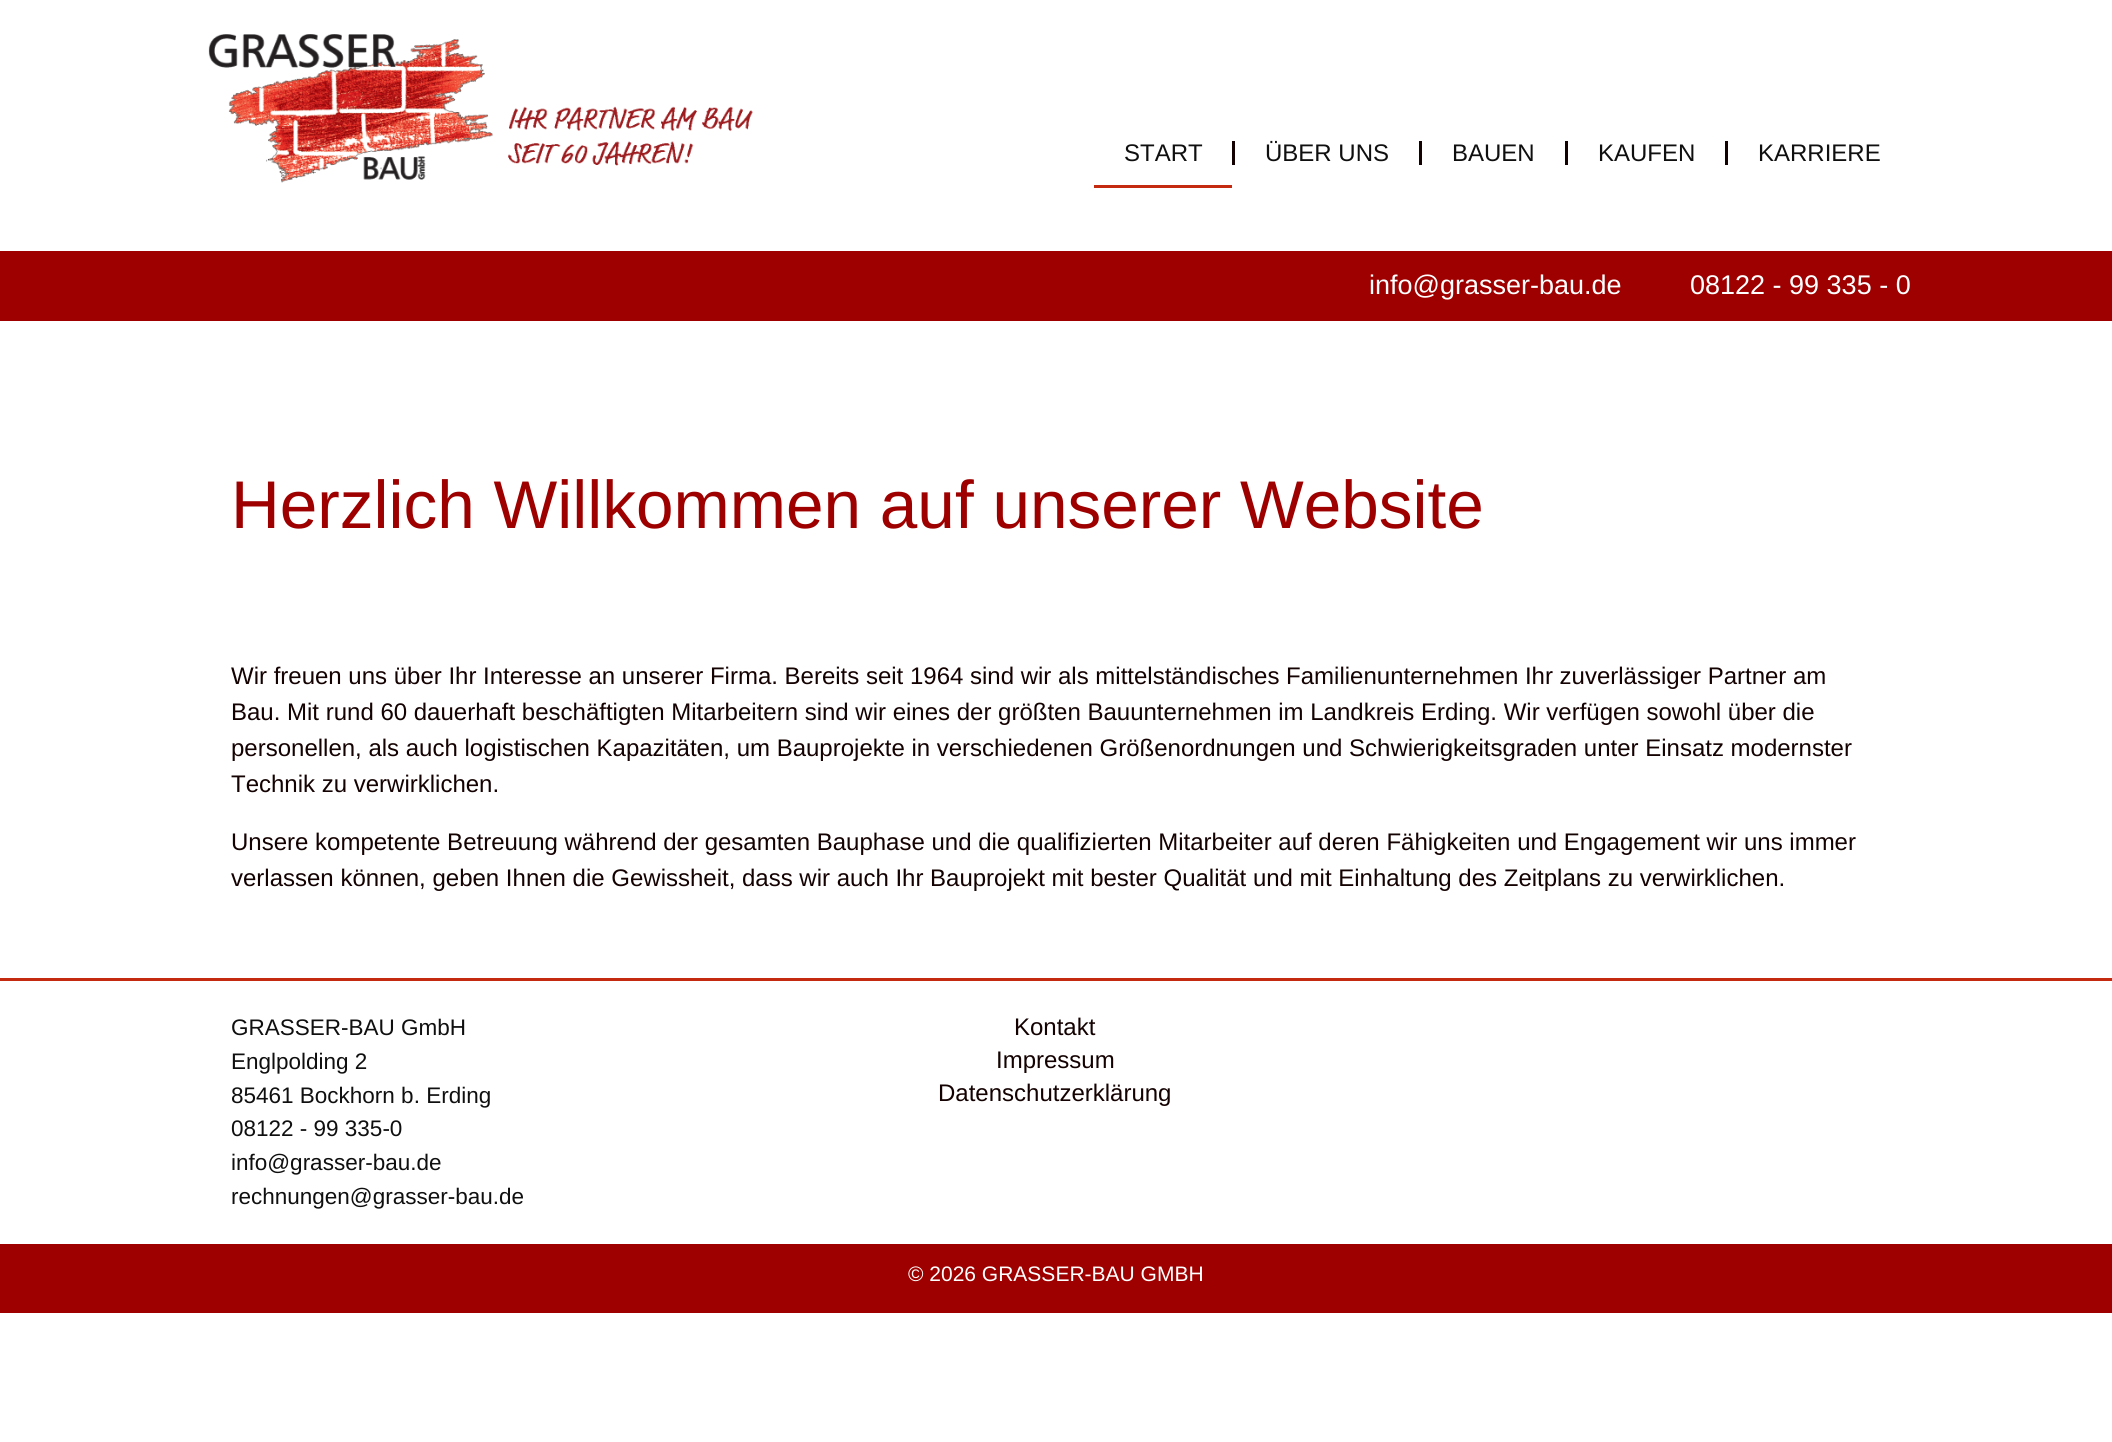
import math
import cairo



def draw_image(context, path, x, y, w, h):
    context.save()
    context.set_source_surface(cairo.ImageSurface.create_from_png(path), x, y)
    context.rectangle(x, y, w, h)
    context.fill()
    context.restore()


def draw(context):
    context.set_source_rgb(1, 1, 1)
    context.paint()
    draw_image(context, "images/1.png", 208, 34, 545, 149)
    context.set_source_rgb(196 / 255, 42 / 255, 16 / 255)
    context.rectangle(1094, 185, 138, 3)
    context.fill()
    context.set_source_rgb(20 / 255, 1 / 255, 1 / 255)
    context.rectangle(1232, 141, 3, 24)
    context.fill()
    context.rectangle(1419, 141, 3, 24)
    context.fill()
    context.rectangle(1565, 141, 3, 24)
    context.fill()
    context.rectangle(1725, 141, 3, 24)
    context.fill()
    context.set_source_rgb(158 / 255, 0, 0)
    context.rectangle(0, 251, 2112, 70)
    context.fill()
    context.set_source_rgb(196 / 255, 42 / 255, 16 / 255)
    context.rectangle(0, 978, 2112, 3)
    context.fill()
    context.set_source_rgb(158 / 255, 0, 0)
    context.rectangle(0, 1244, 2112, 69)
    context.fill()
    context.select_font_face("Liberation Sans")
    context.set_font_size(24)
    context.set_source_rgb(15 / 255, 15 / 255, 15 / 255)
    context.move_to(1124, 161)
    context.show_text("START")
    context.move_to(1265, 161)
    context.show_text("ÜBER UNS")
    context.move_to(1452, 161)
    context.show_text("BAUEN")
    context.move_to(1598, 161)
    context.show_text("KAUFEN")
    context.move_to(1758, 161)
    context.show_text("KARRIERE")
    context.set_font_size(27)
    context.set_source_rgb(1, 1, 1)
    context.move_to(1369, 294)
    context.show_text("info@grasser-bau.de")
    context.move_to(1690, 294)
    context.show_text("08122 - 99 335 - 0")
    context.set_font_size(67.5)
    context.set_source_rgb(158 / 255, 0, 0)
    context.move_to(231, 528)
    context.show_text("Herzlich Willkommen auf unserer Website")
    context.set_font_size(24)
    context.set_source_rgb(20 / 255, 1 / 255, 1 / 255)
    context.move_to(231, 684)
    context.show_text("Wir freuen uns über Ihr Interesse an unserer Firma. Bereits seit 1964 sind wir als mittelständisches Familienunternehmen Ihr zuverlässiger Partner am")
    context.move_to(231, 720)
    context.show_text("Bau. Mit rund 60 dauerhaft beschäftigten Mitarbeitern sind wir eines der größten Bauunternehmen im Landkreis Erding. Wir verfügen sowohl über die")
    context.move_to(231, 756)
    context.show_text("personellen, als auch logistischen Kapazitäten, um Bauprojekte in verschiedenen Größenordnungen und Schwierigkeitsgraden unter Einsatz modernster")
    context.move_to(231, 792)
    context.show_text("Technik zu verwirklichen.")
    context.move_to(231, 850)
    context.show_text("Unsere kompetente Betreuung während der gesamten Bauphase und die qualifizierten Mitarbeiter auf deren Fähigkeiten und Engagement wir uns immer")
    context.move_to(231, 886)
    context.show_text("verlassen können, geben Ihnen die Gewissheit, dass wir auch Ihr Bauprojekt mit bester Qualität und mit Einhaltung des Zeitplans zu verwirklichen.")
    context.set_font_size(22.5)
    context.set_source_rgb(15 / 255, 15 / 255, 15 / 255)
    context.move_to(231, 1035)
    context.show_text("GRASSER-BAU GmbH")
    context.move_to(231, 1069)
    context.show_text("Englpolding 2")
    context.move_to(231, 1103)
    context.show_text("85461 Bockhorn b. Erding")
    context.move_to(231, 1136)
    context.show_text("08122 - 99 335-0")
    context.move_to(231, 1170)
    context.show_text("info@grasser-bau.de")
    context.move_to(231, 1204)
    context.show_text("rechnungen@grasser-bau.de")
    context.set_font_size(24)
    context.set_source_rgb(20 / 255, 1 / 255, 1 / 255)
    context.move_to(1014, 1035)
    context.show_text("Kontakt")
    context.move_to(996, 1068)
    context.show_text("Impressum")
    context.move_to(938, 1101)
    context.show_text("Datenschutzerklärung")
    context.set_font_size(21)
    context.set_source_rgb(1, 1, 1)
    context.move_to(908, 1281)
    context.show_text("© 2026 GRASSER-BAU GMBH")


surface = cairo.ImageSurface(cairo.Format.RGB24, 2112, 1442)
context = cairo.Context(surface)
options = cairo.FontOptions()
options.set_hint_metrics(cairo.HintMetrics.OFF)
options.set_hint_style(cairo.HintStyle.NONE)
context.set_font_options(options)
context.set_miter_limit(4)
draw(context)
surface.write_to_png("out.png")
